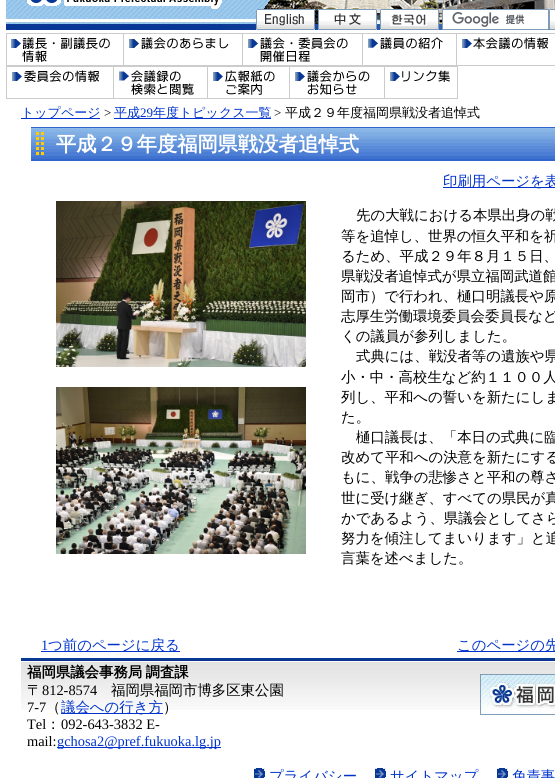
import math
import cairo



def draw_spaced(context, x, y, s, letter, word):
    context.move_to(x, y)
    for ch in s:
        context.show_text(ch)
        context.rel_move_to(letter + word * (ch == ' '), 0)


def draw_image(context, path, x, y, w, h):
    context.save()
    context.set_source_surface(cairo.ImageSurface.create_from_png(path), x, y)
    context.rectangle(x, y, w, h)
    context.fill()
    context.restore()


def draw(context):
    context.set_source_rgb(1, 1, 1)
    context.paint()
    draw_image(context, "images/1.png", 6, 0, 544, 30)
    draw_image(context, "images/2.png", 27, 0, 195, 9)
    draw_image(context, "images/3.png", 264, 0, 291, 24)
    draw_image(context, "images/4.png", 256, 9, 59, 21)
    draw_image(context, "images/5.png", 318, 9, 59, 21)
    draw_image(context, "images/6.png", 380, 9, 59, 21)
    context.set_source_rgb(1, 1, 1)
    context.rectangle(443, 10, 105, 19)
    context.fill()
    draw_image(context, "images/7.png", 452, 12, 73, 15)
    context.rectangle(442.5, 9.5, 106, 20)
    context.set_source_rgb(127 / 255, 157 / 255, 185 / 255)
    context.set_line_width(1)
    context.stroke()
    draw_image(context, "images/8.png", 549, 9, 6, 21)
    draw_image(context, "images/9.png", 6, 33, 118, 33)
    draw_image(context, "images/10.png", 124, 33, 118, 33)
    draw_image(context, "images/11.png", 242, 33, 120, 33)
    draw_image(context, "images/12.png", 362, 33, 94, 33)
    draw_image(context, "images/13.png", 456, 33, 99, 33)
    draw_image(context, "images/14.png", 6, 66, 107, 33)
    draw_image(context, "images/15.png", 113, 66, 94, 33)
    draw_image(context, "images/16.png", 207, 66, 82, 33)
    draw_image(context, "images/17.png", 289, 66, 95, 33)
    draw_image(context, "images/18.png", 384, 66, 74, 33)
    context.set_source_rgb(0, 51 / 255, 204 / 255)
    context.rectangle(21, 118, 79, 1)
    context.fill()
    context.rectangle(114, 118, 157, 1)
    context.fill()
    context.set_source_rgb(51 / 255, 102 / 255, 204 / 255)
    context.rectangle(31, 127, 524, 34)
    context.fill()
    draw_image(context, "images/19.png", 31, 128, 524, 31)
    draw_image(context, "images/20.png", 36, 132, 8, 23)
    context.set_source_rgb(0, 51 / 255, 204 / 255)
    context.rectangle(443, 187, 112, 1)
    context.fill()
    draw_image(context, "images/21.png", 56, 201, 250, 166)
    draw_image(context, "images/22.png", 56, 387, 250, 167)
    context.rectangle(41, 651, 139, 1)
    context.fill()
    context.rectangle(457, 651, 98, 1)
    context.fill()
    draw_image(context, "images/23.png", 21, 658, 534, 52)
    context.rectangle(61, 713, 102, 1)
    context.fill()
    context.rectangle(57, 747, 164, 1)
    context.fill()
    draw_image(context, "images/24.png", 480, 674, 75, 41)
    draw_image(context, "images/25.png", 254, 768, 11, 10)
    draw_image(context, "images/25.png", 375, 768, 11, 10)
    draw_image(context, "images/25.png", 497, 768, 11, 10)
    context.select_font_face("WenQuanYi Zen Hei Medium")
    context.set_font_size(13)
    context.move_to(21, 117)
    context.show_text("トップページ")
    context.select_font_face("Liberation Serif")
    context.set_source_rgb(0, 0, 0)
    context.move_to(104, 117)
    context.show_text(">")
    context.select_font_face("WenQuanYi Zen Hei Medium")
    context.set_source_rgb(0, 51 / 255, 204 / 255)
    context.move_to(114, 117)
    context.show_text("平成")
    context.select_font_face("Liberation Serif")
    context.move_to(140, 117)
    context.show_text("29")
    context.select_font_face("WenQuanYi Zen Hei Medium")
    context.move_to(153, 117)
    context.show_text("年度トピックス一覧")
    context.select_font_face("Liberation Serif")
    context.set_source_rgb(0, 0, 0)
    context.move_to(274, 117)
    context.show_text(">")
    context.select_font_face("WenQuanYi Zen Hei Medium")
    context.move_to(285, 117)
    context.show_text("平成２９年度福岡県戦没者追悼式")
    context.select_font_face("WenQuanYi Zen Hei", cairo.FontSlant.NORMAL, cairo.FontWeight.BOLD)
    context.set_font_size(20.2)
    context.set_source_rgb(1, 1, 1)
    context.move_to(56, 151)
    context.show_text("平成２９年度福岡県戦没者追悼式")
    context.select_font_face("WenQuanYi Zen Hei Medium")
    context.set_font_size(14.4)
    context.set_source_rgb(0, 51 / 255, 204 / 255)
    context.move_to(443, 186)
    context.show_text("印刷用ページを表")
    context.set_source_rgb(0, 0, 0)
    context.move_to(356, 220)
    context.show_text("先の大戦における本県出身の戦")
    context.move_to(341, 241)
    context.show_text("等を追悼し、世界の恒久平和を祈")
    context.move_to(341, 261)
    context.show_text("るため、平成２９年８月１５日、")
    context.move_to(341, 281)
    context.show_text("県戦没者追悼式が県立福岡武道館")
    context.move_to(341, 301)
    context.show_text("岡市）で行われ、樋口明議長や原")
    context.move_to(341, 321)
    context.show_text("志厚生労働環境委員会委員長など")
    context.move_to(341, 341)
    context.show_text("くの議員が参列しました。")
    context.move_to(356, 361)
    context.show_text("式典には、戦没者等の遺族や県")
    context.move_to(341, 382)
    context.show_text("小・中・高校生など約１１００人")
    context.move_to(341, 402)
    context.show_text("列し、平和への誓いを新たにしま")
    context.move_to(341, 422)
    context.show_text("た。")
    context.move_to(356, 442)
    context.show_text("樋口議長は、「本日の式典に臨")
    context.move_to(341, 462)
    context.show_text("改めて平和への決意を新たにする")
    context.move_to(341, 482)
    context.show_text("もに、戦争の悲惨さと平和の尊さ")
    context.move_to(341, 503)
    context.show_text("世に受け継ぎ、すべての県民が真")
    context.move_to(341, 523)
    context.show_text("かであるよう、県議会としてさら")
    context.move_to(341, 543)
    context.show_text("努力を傾注してまいります」と追")
    context.move_to(341, 563)
    context.show_text("言葉を述べました。")
    context.select_font_face("Liberation Serif")
    context.set_source_rgb(0, 51 / 255, 204 / 255)
    context.move_to(41, 650)
    context.show_text("1")
    context.select_font_face("WenQuanYi Zen Hei Medium")
    context.move_to(48, 650)
    context.show_text("つ前のページに戻る")
    context.move_to(457, 650)
    context.show_text("このページの先")
    context.select_font_face("WenQuanYi Zen Hei", cairo.FontSlant.NORMAL, cairo.FontWeight.BOLD)
    context.set_source_rgb(0, 0, 0)
    draw_spaced(context, 27, 677, "福岡県議会事務局 調査課", 0, -1)
    context.select_font_face("WenQuanYi Zen Hei Medium")
    context.move_to(27, 695)
    context.show_text("〒")
    context.select_font_face("Liberation Serif")
    context.move_to(42, 695)
    context.show_text("812-8574")
    context.select_font_face("WenQuanYi Zen Hei Medium")
    context.move_to(111, 695)
    context.show_text("福岡県福岡市博多区東公園")
    context.select_font_face("Liberation Serif")
    context.move_to(27, 712)
    context.show_text("7-7")
    context.select_font_face("WenQuanYi Zen Hei Medium")
    context.move_to(46, 712)
    context.show_text("（")
    context.set_source_rgb(0, 51 / 255, 204 / 255)
    context.move_to(61, 712)
    context.show_text("議会への行き方")
    context.set_source_rgb(0, 0, 0)
    context.move_to(163, 712)
    context.show_text("）")
    context.select_font_face("Liberation Serif")
    context.move_to(27, 729)
    context.show_text("Tel")
    context.select_font_face("WenQuanYi Zen Hei Medium")
    context.move_to(46, 729)
    context.show_text("：")
    context.select_font_face("Liberation Serif")
    context.move_to(61, 729)
    context.show_text("092-643-3832 E-")
    context.move_to(27, 746)
    context.show_text("mail:")
    context.set_source_rgb(0, 51 / 255, 204 / 255)
    context.move_to(57, 746)
    context.show_text("gchosa2@pref.fukuoka.lg.jp")
    context.select_font_face("WenQuanYi Zen Hei Medium")
    context.move_to(269, 781)
    context.show_text("プライバシー")
    context.move_to(390, 781)
    context.show_text("サイトマップ")
    context.move_to(512, 781)
    context.show_text("免責事")


surface = cairo.ImageSurface(cairo.Format.RGB24, 555, 778)
context = cairo.Context(surface)
options = cairo.FontOptions()
options.set_hint_metrics(cairo.HintMetrics.OFF)
options.set_hint_style(cairo.HintStyle.NONE)
context.set_font_options(options)
context.set_miter_limit(4)
draw(context)
surface.write_to_png("out.png")
